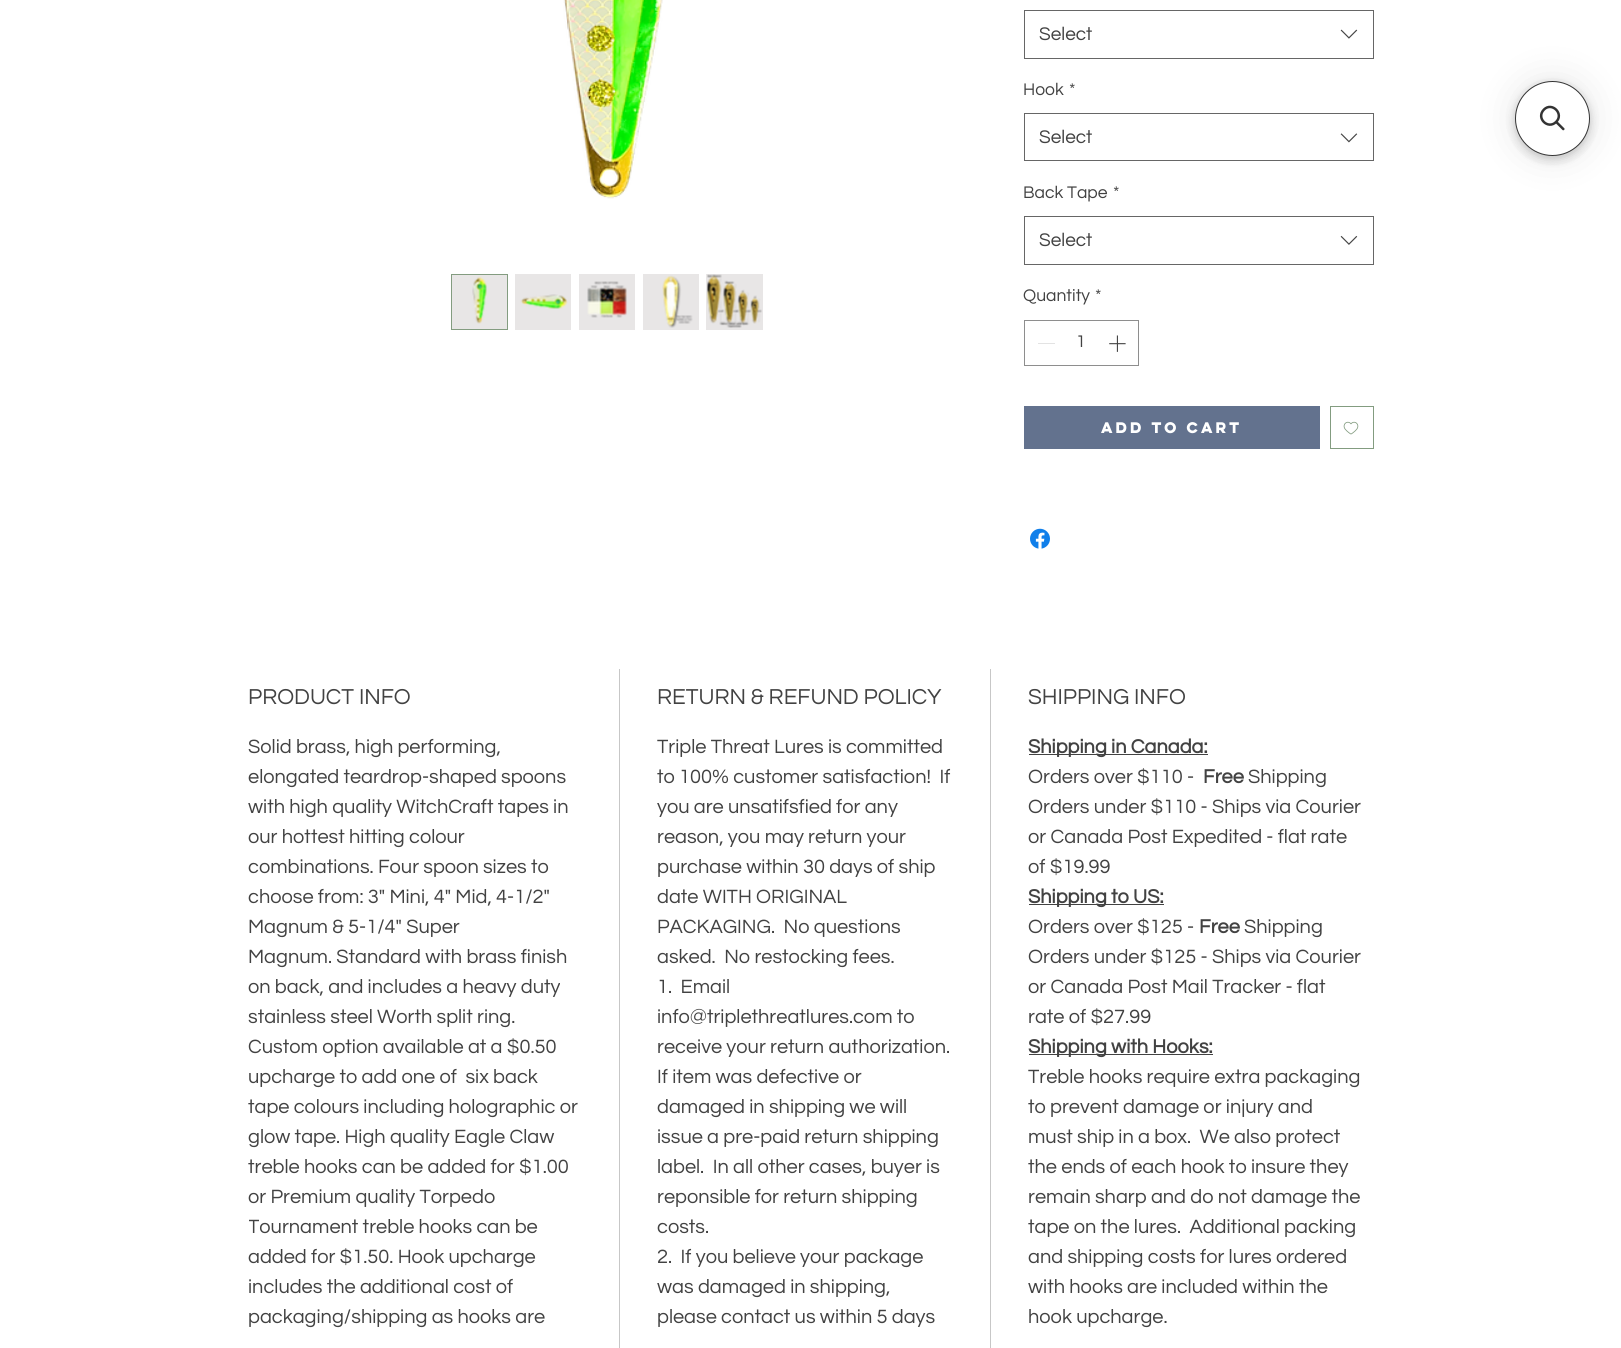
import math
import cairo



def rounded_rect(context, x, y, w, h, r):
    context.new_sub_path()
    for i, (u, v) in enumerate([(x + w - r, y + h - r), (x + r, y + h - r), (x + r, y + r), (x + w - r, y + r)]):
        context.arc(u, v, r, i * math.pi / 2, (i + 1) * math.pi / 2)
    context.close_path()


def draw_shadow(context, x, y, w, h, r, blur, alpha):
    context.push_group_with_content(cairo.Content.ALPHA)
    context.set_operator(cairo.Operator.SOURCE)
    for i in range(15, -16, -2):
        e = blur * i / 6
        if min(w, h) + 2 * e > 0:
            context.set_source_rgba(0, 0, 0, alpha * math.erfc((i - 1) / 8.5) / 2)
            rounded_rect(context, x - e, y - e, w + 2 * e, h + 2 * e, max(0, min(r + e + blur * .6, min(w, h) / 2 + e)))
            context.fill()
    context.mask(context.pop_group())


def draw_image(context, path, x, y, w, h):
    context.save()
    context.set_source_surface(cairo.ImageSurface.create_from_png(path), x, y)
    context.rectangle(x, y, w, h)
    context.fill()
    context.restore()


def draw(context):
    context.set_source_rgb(1, 1, 1)
    context.paint()
    draw_image(context, "images/1.png", 563, 0, 100, 199)
    context.set_source_rgb(232 / 255, 230 / 255, 230 / 255)
    context.rectangle(451.5, 274.5, 56, 55)
    context.fill_preserve()
    context.set_source_rgb(131 / 255, 156 / 255, 128 / 255)
    context.set_line_width(1)
    context.stroke()
    draw_image(context, "images/2.png", 472, 276, 15, 48)
    context.set_source_rgb(232 / 255, 230 / 255, 230 / 255)
    context.rectangle(515, 274, 56, 56)
    context.fill()
    draw_image(context, "images/3.png", 520, 294, 48, 15)
    context.rectangle(579, 274, 56, 56)
    context.fill()
    draw_image(context, "images/4.png", 587, 281, 40, 37)
    context.rectangle(643, 274, 56, 56)
    context.fill()
    draw_image(context, "images/5.png", 662, 275, 31, 53)
    context.rectangle(706, 274, 57, 56)
    context.fill()
    draw_image(context, "images/6.png", 707, 274, 55, 54)
    context.rectangle(1024.5, 10.5, 349, 48)
    context.set_source_rgb(102 / 255, 102 / 255, 102 / 255)
    context.stroke()
    draw_image(context, "images/7.png", 1340, 29, 18, 10)
    context.rectangle(1024.5, 113.5, 349, 47)
    context.stroke()
    draw_image(context, "images/8.png", 1340, 133, 18, 10)
    context.rectangle(1024.5, 216.5, 349, 48)
    context.stroke()
    draw_image(context, "images/9.png", 1340, 235, 18, 10)
    context.rectangle(1024.5, 320.5, 114, 45)
    context.set_source_rgb(142 / 255, 142 / 255, 142 / 255)
    context.stroke()
    context.set_source_rgb(227 / 255, 227 / 255, 227 / 255)
    context.rectangle(1038, 343, 17, 1)
    context.fill()
    draw_image(context, "images/10.png", 1109, 335, 17, 17)
    context.set_source_rgb(99 / 255, 114 / 255, 142 / 255)
    context.rectangle(1024, 406, 296, 43)
    context.fill()
    context.rectangle(1330.5, 406.5, 43, 42)
    context.set_source_rgb(131 / 255, 156 / 255, 128 / 255)
    context.stroke()
    draw_image(context, "images/11.png", 1343, 421, 16, 14)
    draw_image(context, "images/12.png", 1030, 528, 20, 21)
    context.set_source_rgb(199 / 255, 199 / 255, 199 / 255)
    context.rectangle(619, 669, 1, 679)
    context.fill()
    context.rectangle(990, 669, 1, 679)
    context.fill()
    context.set_source_rgb(66 / 255, 66 / 255, 66 / 255)
    context.rectangle(1029, 754, 179, 1)
    context.fill()
    context.rectangle(1029, 904, 135, 1)
    context.fill()
    context.rectangle(1029, 1054, 184, 1)
    context.fill()
    context.set_source_rgb(0, 0, 0)
    draw_shadow(context, 1515, 86, 75, 75, 37.5, 5, 0.05)
    draw_shadow(context, 1515, 84, 75, 75, 37.5, 5, 0.15)
    draw_shadow(context, 1515, 81, 75, 75, 37.5, 19, 0.1)
    context.set_source_rgb(1, 1, 1)
    context.arc(1552.5, 118.5, 37, 0, 2 * math.pi)
    context.fill_preserve()
    context.set_source_rgb(51 / 255, 51 / 255, 51 / 255)
    context.stroke()
    context.new_path()
    context.move_to(1544, 109.5)
    context.curve_to(1552, 101.5, 1564.5, 114, 1556, 122)
    context.curve_to(1548, 130, 1535.5, 118, 1544, 109.5)
    context.close_path()
    context.set_line_width(2.5)
    context.stroke()
    context.new_path()
    context.move_to(1555.5, 123)
    context.line_to(1557, 121)
    context.line_to(1564.5, 128.5)
    context.curve_to(1565, 129.5, 1563.5, 131, 1562.5, 130)
    context.close_path()
    context.fill()
    context.select_font_face("Questrial")
    context.set_font_size(19)
    context.set_source_rgb(66 / 255, 66 / 255, 66 / 255)
    context.move_to(1039, 40)
    context.show_text("Select")
    context.set_font_size(17.5)
    context.move_to(1023, 95)
    context.show_text("Hook")
    context.move_to(1069, 95)
    context.show_text("*")
    context.set_font_size(19)
    context.move_to(1039, 143)
    context.show_text("Select")
    context.set_font_size(17.5)
    context.move_to(1023, 198)
    context.show_text("Back Tape")
    context.move_to(1113, 198)
    context.show_text("*")
    context.set_font_size(19)
    context.move_to(1039, 246)
    context.show_text("Select")
    context.set_font_size(17.5)
    context.move_to(1023, 301)
    context.show_text("Quantity")
    context.move_to(1095, 301)
    context.show_text("*")
    context.move_to(1076, 347)
    context.show_text("1")
    context.select_font_face("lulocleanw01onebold", cairo.FontSlant.NORMAL, cairo.FontWeight.BOLD)
    context.set_font_size(13.75)
    context.set_source_rgb(1, 1, 1)
    context.move_to(1101, 433)
    context.show_text("Add to Cart")
    context.select_font_face("Questrial")
    context.set_font_size(22.5)
    context.set_source_rgb(66 / 255, 66 / 255, 66 / 255)
    context.move_to(248, 704)
    context.show_text("PRODUCT INFO")
    context.set_font_size(20)
    context.move_to(248, 753)
    context.show_text("Solid brass, high performing,")
    context.move_to(248, 783)
    context.show_text("elongated teardrop-shaped spoons")
    context.move_to(248, 813)
    context.show_text("with high quality WitchCraft tapes in")
    context.move_to(248, 843)
    context.show_text("our hottest hitting colour")
    context.move_to(248, 873)
    context.show_text("combinations. Four spoon sizes to")
    context.move_to(248, 903)
    context.show_text("choose from: 3\" Mini, 4\" Mid, 4-1/2\"")
    context.move_to(248, 933)
    context.show_text("Magnum & 5-1/4\" Super")
    context.move_to(248, 963)
    context.show_text("Magnum. Standard with brass finish")
    context.move_to(248, 993)
    context.show_text("on back, and includes a heavy duty")
    context.move_to(248, 1023)
    context.show_text("stainless steel Worth split ring.")
    context.move_to(248, 1053)
    context.show_text("Custom option available at a $0.50")
    context.move_to(248, 1083)
    context.show_text("upcharge to add one of  six back")
    context.move_to(248, 1113)
    context.show_text("tape colours including holographic or")
    context.move_to(248, 1143)
    context.show_text("glow tape. High quality Eagle Claw")
    context.move_to(248, 1173)
    context.show_text("treble hooks can be added for $1.00")
    context.move_to(248, 1203)
    context.show_text("or Premium quality Torpedo")
    context.save()
    context.rectangle(249, 669, 370, 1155)
    context.clip()
    context.move_to(248, 1233)
    context.show_text("Tournament treble hooks can be")
    context.restore()
    context.move_to(248, 1263)
    context.show_text("added for $1.50. Hook upcharge")
    context.move_to(248, 1293)
    context.show_text("includes the additional cost of")
    context.move_to(248, 1323)
    context.show_text("packaging/shipping as hooks are")
    context.set_font_size(22.5)
    context.move_to(657, 704)
    context.show_text("RETURN & REFUND POLICY")
    context.set_font_size(20)
    context.move_to(657, 753)
    context.show_text("Triple Threat Lures is committed")
    context.move_to(657, 783)
    context.show_text("to 100% customer satisfaction!  If")
    context.move_to(657, 813)
    context.show_text("you are unsatifsfied for any")
    context.move_to(657, 843)
    context.show_text("reason, you may return your")
    context.move_to(657, 873)
    context.show_text("purchase within 30 days of ship")
    context.move_to(657, 903)
    context.show_text("date WITH ORIGINAL")
    context.move_to(657, 933)
    context.show_text("PACKAGING.  No questions")
    context.move_to(657, 963)
    context.show_text("asked.  No restocking fees.")
    context.move_to(657, 993)
    context.show_text("1.  Email")
    context.move_to(657, 1023)
    context.show_text("info@triplethreatlures.com to")
    context.move_to(657, 1053)
    context.show_text("receive your return authorization.")
    context.move_to(657, 1083)
    context.show_text("If item was defective or")
    context.move_to(657, 1113)
    context.show_text("damaged in shipping we will")
    context.move_to(657, 1143)
    context.show_text("issue a pre-paid return shipping")
    context.move_to(657, 1173)
    context.show_text("label.  In all other cases, buyer is")
    context.move_to(657, 1203)
    context.show_text("reponsible for return shipping")
    context.move_to(657, 1233)
    context.show_text("costs.")
    context.move_to(657, 1263)
    context.show_text("2.  If you believe your package")
    context.move_to(657, 1293)
    context.show_text("was damaged in shipping,")
    context.move_to(657, 1323)
    context.show_text("please contact us within 5 days")
    context.set_font_size(22.5)
    context.move_to(1028, 704)
    context.show_text("SHIPPING INFO")
    context.select_font_face("Questrial", cairo.FontSlant.NORMAL, cairo.FontWeight.BOLD)
    context.set_font_size(20)
    context.move_to(1028, 753)
    context.show_text("Shipping in Canada:")
    context.select_font_face("Questrial")
    context.move_to(1028, 783)
    context.show_text("Orders over $110 -")
    context.select_font_face("Questrial", cairo.FontSlant.NORMAL, cairo.FontWeight.BOLD)
    context.move_to(1203, 783)
    context.show_text("Free")
    context.select_font_face("Questrial")
    context.move_to(1248, 783)
    context.show_text("Shipping")
    context.move_to(1028, 813)
    context.show_text("Orders under $110 - Ships via Courier")
    context.move_to(1028, 843)
    context.show_text("or Canada Post Expedited - flat rate")
    context.move_to(1028, 873)
    context.show_text("of $19.99")
    context.select_font_face("Questrial", cairo.FontSlant.NORMAL, cairo.FontWeight.BOLD)
    context.move_to(1028, 903)
    context.show_text("Shipping to US:")
    context.select_font_face("Questrial")
    context.move_to(1028, 933)
    context.show_text("Orders over $125 -")
    context.select_font_face("Questrial", cairo.FontSlant.NORMAL, cairo.FontWeight.BOLD)
    context.move_to(1199, 933)
    context.show_text("Free")
    context.select_font_face("Questrial")
    context.move_to(1244, 933)
    context.show_text("Shipping")
    context.move_to(1028, 963)
    context.show_text("Orders under $125 - Ships via Courier")
    context.move_to(1028, 993)
    context.show_text("or Canada Post Mail Tracker - flat")
    context.move_to(1028, 1023)
    context.show_text("rate of $27.99")
    context.select_font_face("Questrial", cairo.FontSlant.NORMAL, cairo.FontWeight.BOLD)
    context.move_to(1028, 1053)
    context.show_text("Shipping with Hooks:")
    context.select_font_face("Questrial")
    context.move_to(1028, 1083)
    context.show_text("Treble hooks require extra packaging")
    context.move_to(1028, 1113)
    context.show_text("to prevent damage or injury and")
    context.move_to(1028, 1143)
    context.show_text("must ship in a box.  We also protect")
    context.move_to(1028, 1173)
    context.show_text("the ends of each hook to insure they")
    context.move_to(1028, 1203)
    context.show_text("remain sharp and do not damage the")
    context.move_to(1028, 1233)
    context.show_text("tape on the lures.  Additional packing")
    context.move_to(1028, 1263)
    context.show_text("and shipping costs for lures ordered")
    context.move_to(1028, 1293)
    context.show_text("with hooks are included within the")
    context.move_to(1028, 1323)
    context.show_text("hook upcharge.")


surface = cairo.ImageSurface(cairo.Format.RGB24, 1621, 1348)
context = cairo.Context(surface)
options = cairo.FontOptions()
options.set_hint_metrics(cairo.HintMetrics.OFF)
options.set_hint_style(cairo.HintStyle.NONE)
context.set_font_options(options)
context.set_miter_limit(4)
draw(context)
surface.write_to_png("out.png")
